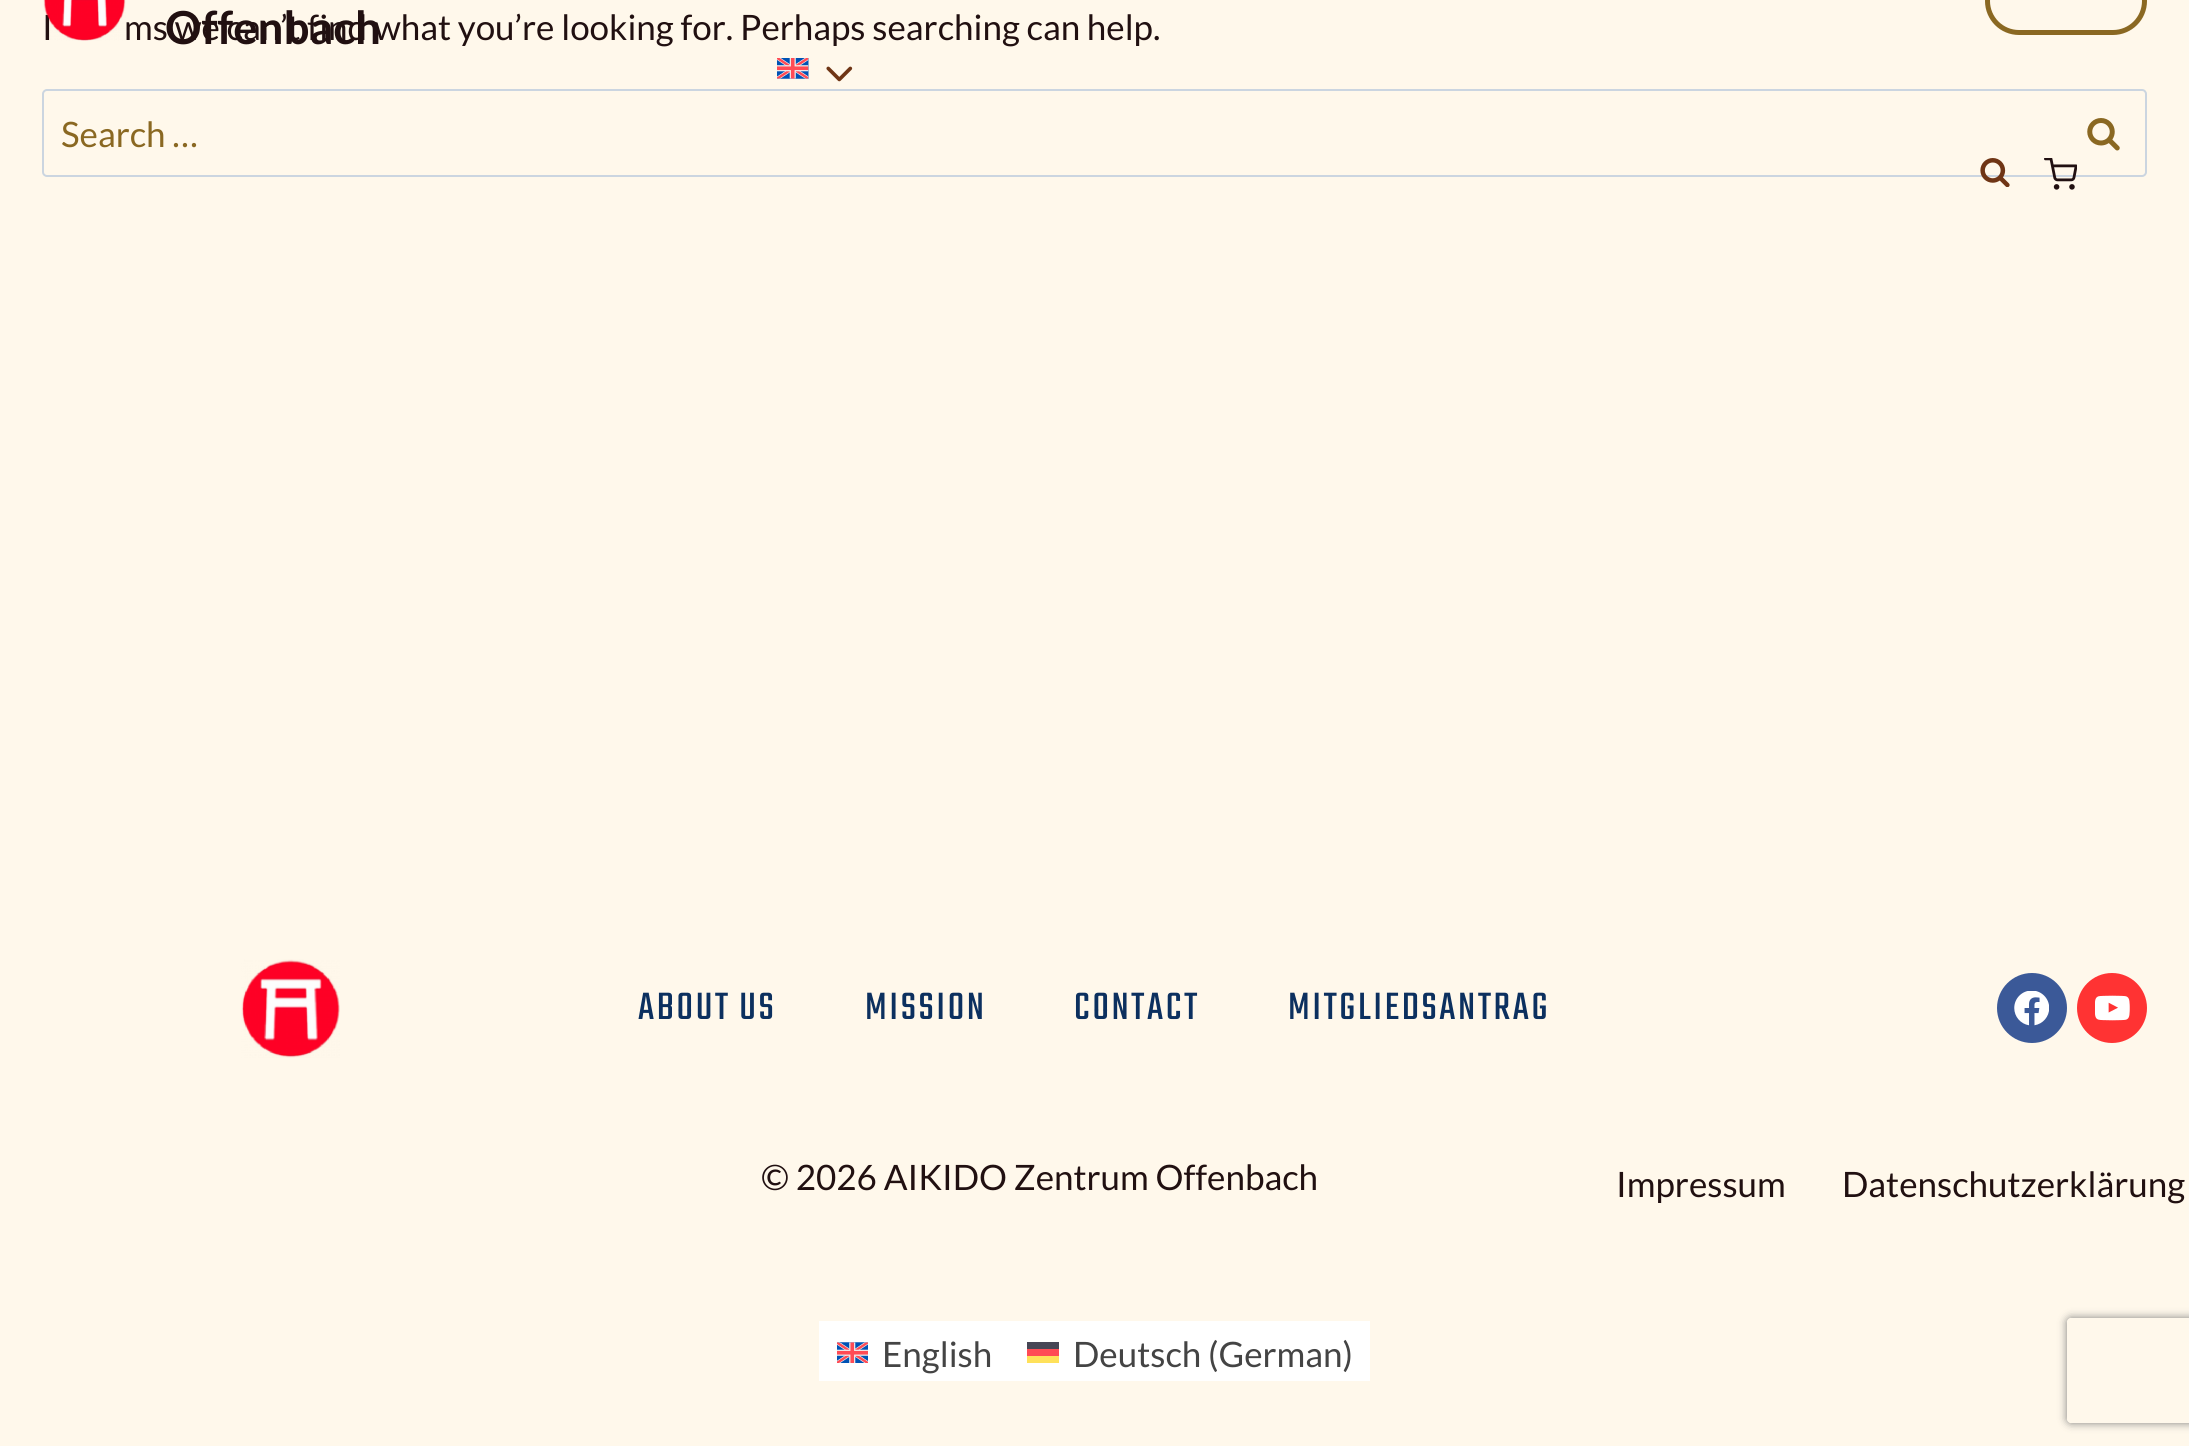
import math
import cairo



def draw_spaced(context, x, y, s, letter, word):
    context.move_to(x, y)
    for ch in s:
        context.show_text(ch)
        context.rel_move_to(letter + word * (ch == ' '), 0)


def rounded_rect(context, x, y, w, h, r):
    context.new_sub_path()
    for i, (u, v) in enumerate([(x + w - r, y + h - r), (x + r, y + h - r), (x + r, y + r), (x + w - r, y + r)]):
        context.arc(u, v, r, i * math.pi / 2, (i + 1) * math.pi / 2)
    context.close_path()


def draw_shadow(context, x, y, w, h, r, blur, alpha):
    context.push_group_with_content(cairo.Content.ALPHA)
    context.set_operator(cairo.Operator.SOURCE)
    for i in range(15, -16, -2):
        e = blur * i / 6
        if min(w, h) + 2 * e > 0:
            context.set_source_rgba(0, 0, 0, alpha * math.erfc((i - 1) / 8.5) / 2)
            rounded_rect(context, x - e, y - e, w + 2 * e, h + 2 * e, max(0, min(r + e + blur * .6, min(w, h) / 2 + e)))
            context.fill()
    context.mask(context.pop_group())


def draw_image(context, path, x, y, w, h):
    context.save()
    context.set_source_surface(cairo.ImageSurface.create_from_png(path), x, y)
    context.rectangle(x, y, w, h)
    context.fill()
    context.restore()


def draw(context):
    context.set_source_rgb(1, 248 / 255, 235 / 255)
    context.paint()
    draw_image(context, "images/2.png", 777, 58, 32, 21)
    draw_image(context, "images/3.png", 826, 66, 27, 16)
    rounded_rect(context, 1987.5, -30.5, 157, 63, 31.5)
    context.set_source_rgb(138 / 255, 104 / 255, 34 / 255)
    context.set_line_width(5)
    context.stroke()
    rounded_rect(context, 43, 90, 2103, 86, 4)
    context.set_source_rgb(203 / 255, 213 / 255, 224 / 255)
    context.set_line_width(2)
    context.stroke()
    draw_image(context, "images/4.png", 1980, 158, 30, 29)
    draw_image(context, "images/5.png", 2044, 158, 33, 32)
    draw_image(context, "images/6.png", 2087, 118, 33, 33)
    draw_image(context, "images/7.png", 241, 959, 99, 99)
    context.set_source_rgb(59 / 255, 89 / 255, 152 / 255)
    context.arc(2032, 1008, 35, 0, 2 * math.pi)
    context.fill()
    draw_image(context, "images/8.png", 2014, 991, 35, 35)
    context.set_source_rgb(1, 51 / 255, 51 / 255)
    context.arc(2112, 1008, 35, 0, 2 * math.pi)
    context.fill()
    draw_image(context, "images/9.png", 2095, 995, 35, 26)
    context.set_source_rgb(1, 1, 1)
    context.rectangle(819, 1321, 551, 60)
    context.fill()
    draw_image(context, "images/10.png", 837, 1342, 31, 21)
    context.set_source_rgb(70 / 255, 70 / 255, 85 / 255)
    context.rectangle(1027, 1342, 32, 7)
    context.fill()
    context.set_source_rgb(1, 75 / 255, 85 / 255)
    context.rectangle(1027, 1349, 32, 7)
    context.fill()
    context.set_source_rgb(1, 225 / 255, 90 / 255)
    context.rectangle(1027, 1356, 32, 7)
    context.fill()
    context.save()
    context.set_fill_rule(cairo.FillRule.EVEN_ODD)
    context.new_path()
    context.move_to(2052, 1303)
    context.line_to(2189, 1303)
    context.line_to(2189, 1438)
    context.line_to(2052, 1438)
    context.close_path()
    context.move_to(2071, 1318)
    context.line_to(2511, 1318)
    context.curve_to(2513, 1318, 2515, 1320, 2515, 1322)
    context.line_to(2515, 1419)
    context.curve_to(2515, 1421, 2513, 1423, 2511, 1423)
    context.line_to(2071, 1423)
    context.curve_to(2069, 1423, 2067, 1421, 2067, 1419)
    context.line_to(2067, 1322)
    context.curve_to(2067, 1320, 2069, 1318, 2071, 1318)
    context.close_path()
    context.clip()
    context.set_source_rgb(128 / 255, 128 / 255, 128 / 255)
    draw_shadow(context, 2067, 1318, 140, 105, 4, 4.5, 1)
    context.restore()
    context.select_font_face("Lato")
    context.set_font_size(35)
    context.set_source_rgb(33 / 255, 16 / 255, 17 / 255)
    context.move_to(42, 40)
    context.show_text("I")
    draw_image(context, "images/1.png", 43, 0, 83, 41)
    context.move_to(124, 40)
    context.show_text("ms we can’t find what you’re looking for. Perhaps searching can help.")
    context.select_font_face("Lato", cairo.FontSlant.NORMAL, cairo.FontWeight.BOLD)
    context.set_font_size(45.5)
    context.move_to(165, 44)
    context.show_text("Offenbach")
    context.select_font_face("Lato")
    context.set_font_size(35)
    context.set_source_rgb(138 / 255, 104 / 255, 34 / 255)
    context.move_to(61, 147)
    context.show_text("Search …")
    context.select_font_face("Teko")
    context.set_font_size(42)
    context.set_source_rgb(12 / 255, 48 / 255, 95 / 255)
    draw_spaced(context, 638, 1019, "ABOUT US", 2.6, 0)
    draw_spaced(context, 865, 1019, "MISSION", 2.6, 0)
    draw_spaced(context, 1074, 1019, "CONTACT", 2.6, 0)
    draw_spaced(context, 1288, 1019, "MITGLIEDSANTRAG", 2.6, 0)
    context.select_font_face("Lato")
    context.set_font_size(35)
    context.set_source_rgb(33 / 255, 16 / 255, 17 / 255)
    context.move_to(761, 1190)
    context.show_text("© 2026 AIKIDO Zentrum Offenbach")
    context.move_to(1616, 1197)
    context.show_text("Impressum")
    context.move_to(1842, 1197)
    context.show_text("Datenschutzerklärung")
    context.set_source_rgb(68 / 255, 68 / 255, 68 / 255)
    context.move_to(882, 1367)
    context.show_text("English")
    context.move_to(1073, 1367)
    context.show_text("Deutsch (German)")


surface = cairo.ImageSurface(cairo.Format.RGB24, 2189, 1446)
context = cairo.Context(surface)
options = cairo.FontOptions()
options.set_hint_metrics(cairo.HintMetrics.OFF)
options.set_hint_style(cairo.HintStyle.NONE)
context.set_font_options(options)
context.set_miter_limit(4)
draw(context)
surface.write_to_png("out.png")
